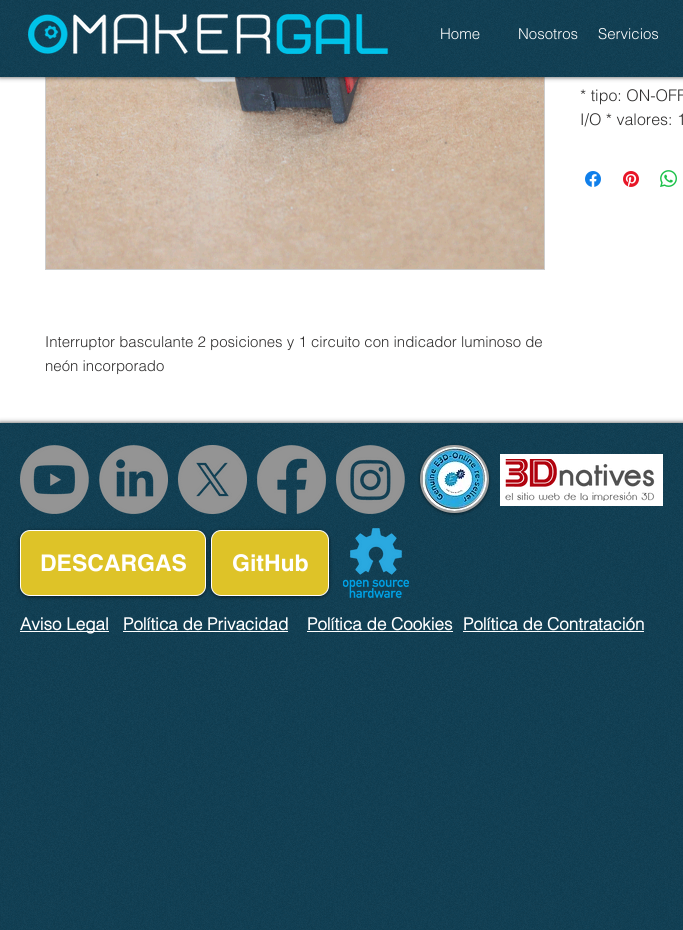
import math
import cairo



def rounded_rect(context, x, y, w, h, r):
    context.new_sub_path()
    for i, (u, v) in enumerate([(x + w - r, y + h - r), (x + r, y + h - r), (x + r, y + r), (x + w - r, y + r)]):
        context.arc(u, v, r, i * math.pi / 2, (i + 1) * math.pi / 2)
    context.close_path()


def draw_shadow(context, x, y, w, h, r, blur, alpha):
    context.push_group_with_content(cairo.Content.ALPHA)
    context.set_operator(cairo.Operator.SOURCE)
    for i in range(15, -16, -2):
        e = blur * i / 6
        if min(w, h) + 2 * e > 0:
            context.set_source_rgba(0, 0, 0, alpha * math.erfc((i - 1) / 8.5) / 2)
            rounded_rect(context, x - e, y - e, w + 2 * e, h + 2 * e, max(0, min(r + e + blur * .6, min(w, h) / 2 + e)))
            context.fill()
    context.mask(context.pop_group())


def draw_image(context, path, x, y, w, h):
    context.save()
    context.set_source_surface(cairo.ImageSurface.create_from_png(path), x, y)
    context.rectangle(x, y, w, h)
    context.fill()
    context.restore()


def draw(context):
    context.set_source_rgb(1, 1, 1)
    context.paint()
    context.rectangle(45.5, -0.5, 499, 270)
    context.set_source_rgb(204 / 255, 204 / 255, 204 / 255)
    context.set_line_width(1)
    context.stroke()
    draw_image(context, "images/6.png", 46, 77, 498, 192)
    context.set_source_rgb(0, 0, 0)
    draw_shadow(context, 0, 0, 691, 77, 0, 2.5, 0.7)
    context.set_source_rgb(16 / 255, 63 / 255, 84 / 255)
    context.rectangle(0, 0, 683, 77)
    context.fill()
    draw_image(context, "images/1.png", 0, 0, 683, 77)
    draw_image(context, "images/2.png", 28, 14, 360, 40)
    draw_image(context, "images/3.png", 585, 171, 16, 16)
    draw_image(context, "images/4.png", 623, 171, 16, 16)
    draw_image(context, "images/5.png", 660, 170, 17, 17)
    context.set_source_rgb(0, 0, 0)
    draw_shadow(context, 0, 423, 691, 507, 0, 2.5, 0.7)
    context.set_source_rgb(16 / 255, 63 / 255, 84 / 255)
    context.rectangle(0, 423, 683, 507)
    context.fill()
    draw_image(context, "images/7.png", 0, 423, 683, 507)
    draw_image(context, "images/8.png", 20, 445, 69, 69)
    draw_image(context, "images/9.png", 99, 445, 69, 69)
    draw_image(context, "images/10.png", 178, 445, 69, 69)
    draw_image(context, "images/11.png", 257, 445, 69, 69)
    draw_image(context, "images/12.png", 336, 445, 69, 69)
    context.set_source_rgb(0, 0, 0)
    draw_shadow(context, 420, 446, 69, 68, 34, 1.5, 0.5)
    context.set_source_rgb(160 / 255, 160 / 255, 159 / 255)
    rounded_rect(context, 421, 446, 67, 66, 33)
    context.fill_preserve()
    context.set_line_width(2)
    context.stroke()
    draw_image(context, "images/13.png", 423, 447, 64, 64)
    context.set_source_rgb(1, 1, 1)
    context.rectangle(500, 454, 163, 52)
    context.fill()
    draw_image(context, "images/14.png", 505, 459, 150, 42)
    context.set_source_rgb(0, 0, 0)
    draw_shadow(context, 20, 531, 186, 66, 10, 2, 0.6)
    context.set_source_rgb(222 / 255, 195 / 255, 40 / 255)
    rounded_rect(context, 20.5, 530.5, 185, 65, 9.5)
    context.fill_preserve()
    context.set_source_rgb(1, 1, 1)
    context.set_line_width(1)
    context.stroke()
    context.set_source_rgb(0, 0, 0)
    draw_shadow(context, 211, 531, 118, 66, 10, 2, 0.6)
    context.set_source_rgb(222 / 255, 195 / 255, 40 / 255)
    rounded_rect(context, 211.5, 530.5, 117, 65, 9.5)
    context.fill_preserve()
    context.set_source_rgb(1, 1, 1)
    context.stroke()
    draw_image(context, "images/15.png", 343, 528, 66, 70)
    context.rectangle(20, 631, 89, 1)
    context.fill()
    context.rectangle(123, 631, 165, 1)
    context.fill()
    context.rectangle(307, 631, 146, 1)
    context.fill()
    context.rectangle(463, 631, 181, 1)
    context.fill()
    context.select_font_face("helvetica Light")
    context.set_font_size(15)
    context.move_to(440, 39)
    context.show_text("Home")
    context.move_to(518, 39)
    context.show_text("Nosotros")
    context.move_to(598, 39)
    context.show_text("Servicios")
    context.set_font_size(16)
    context.set_source_rgb(47 / 255, 46 / 255, 46 / 255)
    context.move_to(580, 101)
    context.show_text("* tipo: ON-OFF")
    context.move_to(580, 125)
    context.show_text("I/O * valores: 1")
    context.set_font_size(15)
    context.move_to(45, 347)
    context.show_text("Interruptor basculante 2 posiciones y 1 circuito con indicador luminoso de")
    context.move_to(45, 371)
    context.show_text("neón incorporado")
    context.select_font_face("helvetica", cairo.FontSlant.NORMAL, cairo.FontWeight.BOLD)
    context.set_font_size(23)
    context.set_source_rgb(1, 1, 1)
    context.move_to(40, 571)
    context.show_text("DESCARGAS")
    context.move_to(232, 571)
    context.show_text("GitHub")
    context.select_font_face("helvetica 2", cairo.FontSlant.NORMAL, cairo.FontWeight.BOLD)
    context.set_font_size(17)
    context.move_to(20, 630)
    context.show_text("Aviso Legal")
    context.move_to(123, 630)
    context.show_text("Política de Privacidad")
    context.move_to(307, 630)
    context.show_text("Política de Cookies")
    context.move_to(463, 630)
    context.show_text("Política de Contratación")


surface = cairo.ImageSurface(cairo.Format.RGB24, 683, 930)
context = cairo.Context(surface)
options = cairo.FontOptions()
options.set_hint_metrics(cairo.HintMetrics.OFF)
options.set_hint_style(cairo.HintStyle.NONE)
context.set_font_options(options)
context.set_miter_limit(4)
draw(context)
surface.write_to_png("out.png")
